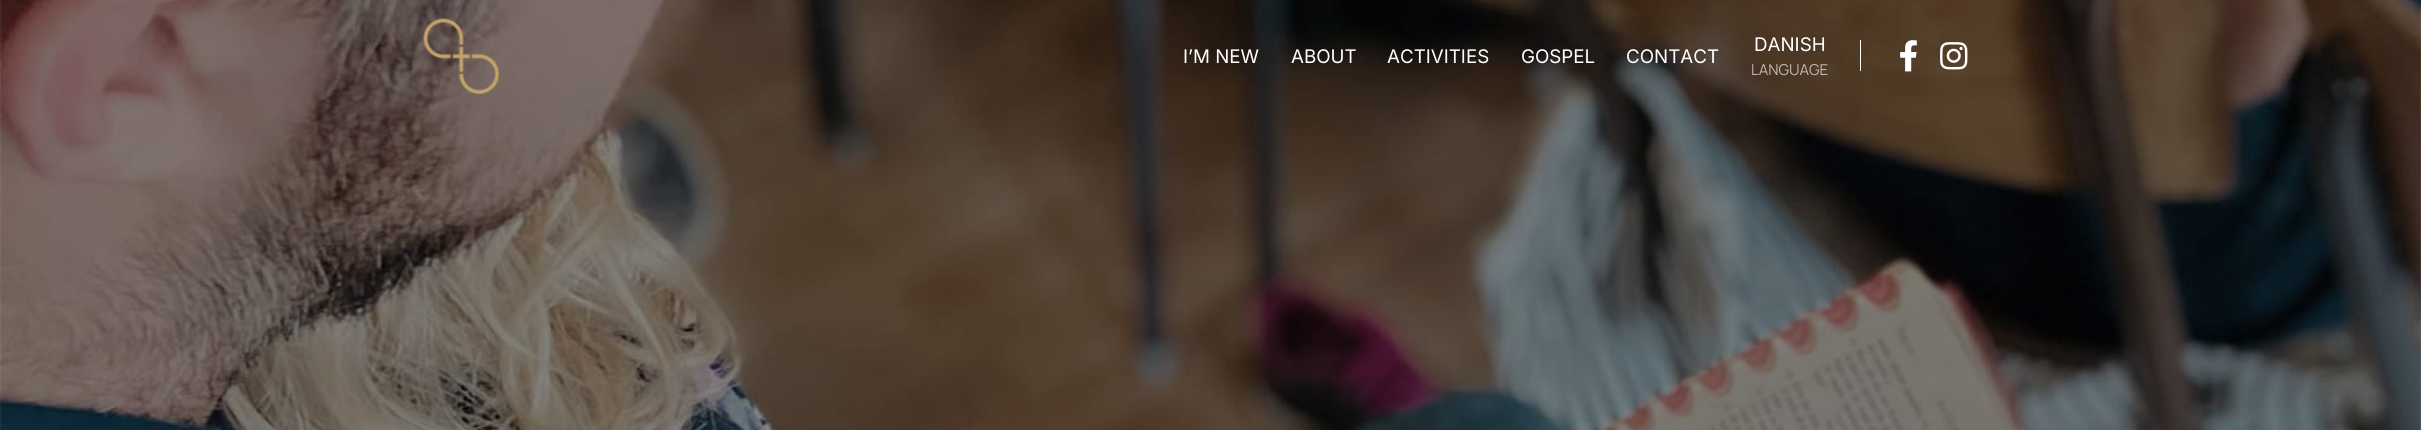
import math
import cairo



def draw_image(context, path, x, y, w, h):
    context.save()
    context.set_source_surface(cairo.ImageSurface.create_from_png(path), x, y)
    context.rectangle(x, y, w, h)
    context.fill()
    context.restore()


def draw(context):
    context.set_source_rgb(1, 1, 1)
    context.paint()
    draw_image(context, "images/1.png", 0, 0, 2421, 430)
    draw_image(context, "images/2.png", 423, 18, 76, 76)
    context.set_source_rgb(1, 1, 1)
    context.rectangle(1860, 40, 1, 31)
    context.fill()
    draw_image(context, "images/3.png", 1900, 40, 17, 32)
    draw_image(context, "images/4.png", 1940, 42, 28, 28)
    context.select_font_face("Inter")
    context.set_font_size(18.75)
    context.move_to(1183, 63)
    context.show_text("I’M NEW")
    context.move_to(1291, 63)
    context.show_text("ABOUT")
    context.move_to(1387, 63)
    context.show_text("ACTIVITIES")
    context.move_to(1521, 63)
    context.show_text("GOSPEL")
    context.move_to(1626, 63)
    context.show_text("CONTACT")
    context.move_to(1754, 51)
    context.show_text("DANISH")
    context.select_font_face("Manrope")
    context.set_font_size(15)
    context.set_source_rgb(192 / 255, 185 / 255, 179 / 255)
    context.move_to(1751, 75)
    context.show_text("LANGUAGE")


surface = cairo.ImageSurface(cairo.Format.RGB24, 2421, 430)
context = cairo.Context(surface)
options = cairo.FontOptions()
options.set_hint_metrics(cairo.HintMetrics.OFF)
options.set_hint_style(cairo.HintStyle.NONE)
context.set_font_options(options)
context.set_miter_limit(4)
draw(context)
surface.write_to_png("out.png")
